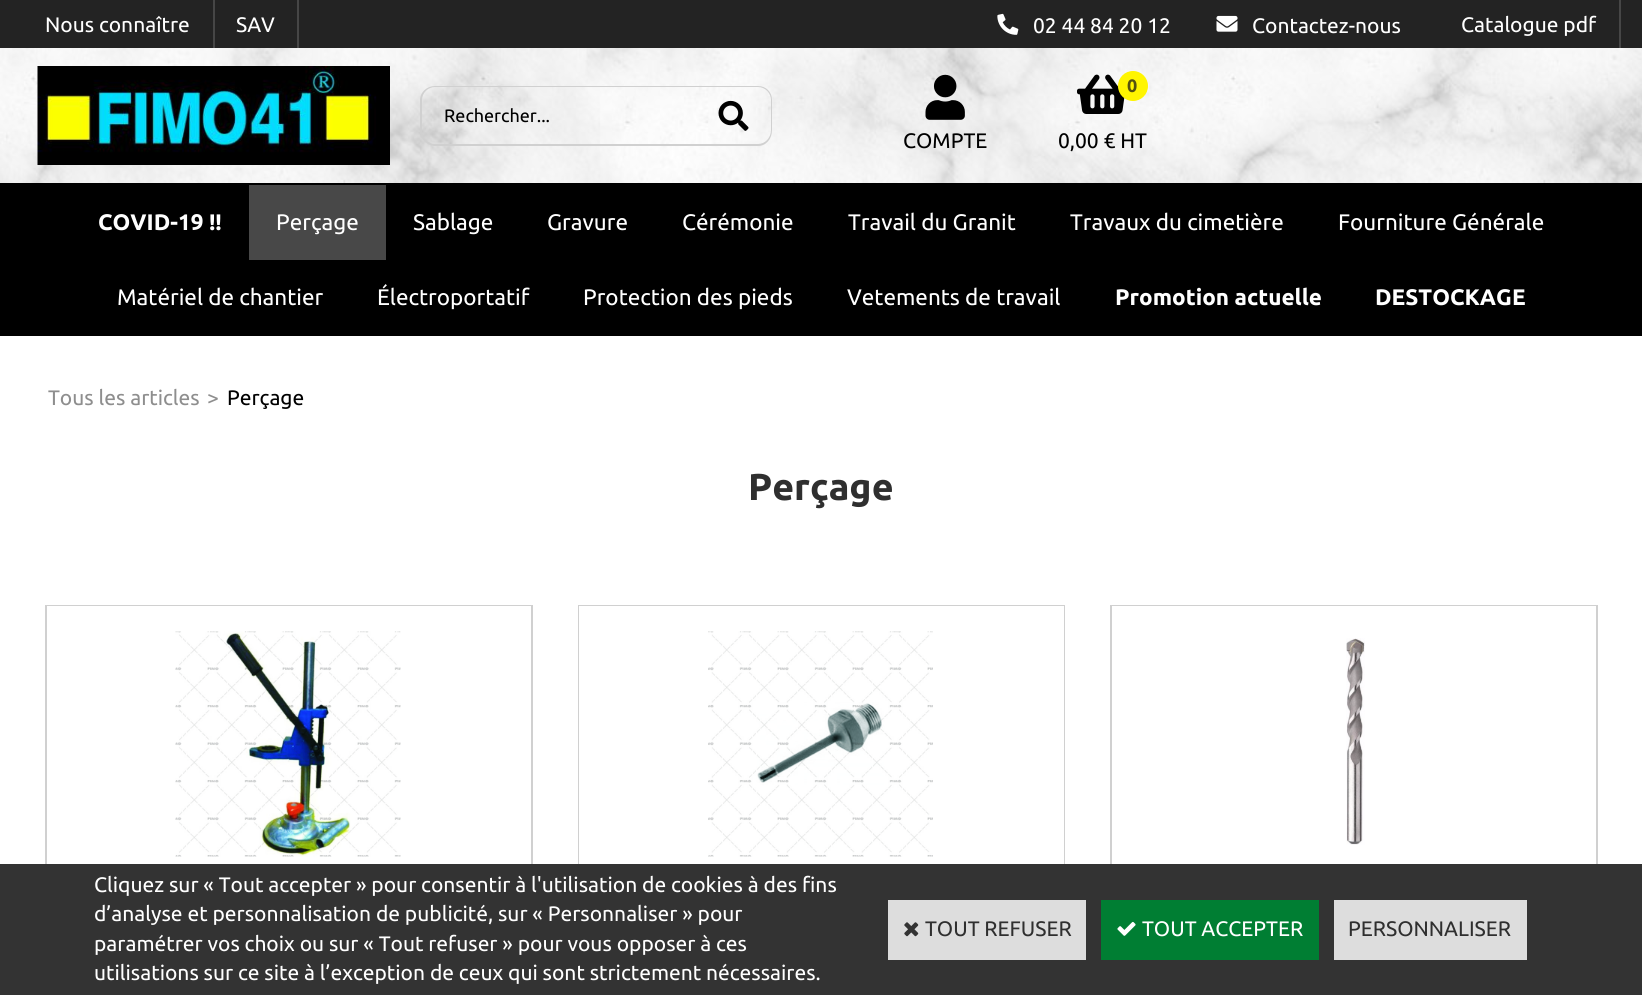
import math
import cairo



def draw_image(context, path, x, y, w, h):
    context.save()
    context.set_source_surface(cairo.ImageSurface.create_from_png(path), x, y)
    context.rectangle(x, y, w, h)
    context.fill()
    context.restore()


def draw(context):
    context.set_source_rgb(1, 1, 1)
    context.paint()
    draw_image(context, "images/1.png", 0, 48, 1642, 135)
    context.set_source_rgb(35 / 255, 35 / 255, 35 / 255)
    context.rectangle(0, 0, 1642, 48)
    context.fill()
    context.set_source_rgb(70 / 255, 70 / 255, 70 / 255)
    context.rectangle(213, 0, 2, 48)
    context.fill()
    context.rectangle(297, 0, 2, 48)
    context.fill()
    draw_image(context, "images/2.png", 997, 13, 22, 22)
    draw_image(context, "images/3.png", 1216, 15, 22, 17)
    context.rectangle(1619, 0, 2, 48)
    context.fill()
    draw_image(context, "images/4.png", 37, 66, 353, 99)
    context.set_source_rgb(208 / 255, 208 / 255, 208 / 255)
    context.set_fill_rule(cairo.FillRule.EVEN_ODD)
    context.new_path()
    context.move_to(435, 86)
    context.line_to(696, 86)
    context.line_to(696, 146)
    context.line_to(435, 146)
    context.curve_to(427, 146, 420, 139, 420, 130)
    context.line_to(420, 100)
    context.curve_to(420, 92, 427, 86, 435, 86)
    context.close_path()
    context.move_to(435, 87)
    context.line_to(696, 87)
    context.line_to(696, 144)
    context.line_to(435, 144)
    context.curve_to(428, 144, 422, 138, 422, 130)
    context.line_to(422, 100)
    context.curve_to(422, 93, 428, 87, 435, 87)
    context.close_path()
    context.fill()
    context.new_path()
    context.move_to(696, 86)
    context.line_to(758, 86)
    context.curve_to(766, 86, 772, 92, 772, 100)
    context.line_to(772, 130)
    context.curve_to(772, 139, 766, 146, 758, 146)
    context.line_to(696, 146)
    context.close_path()
    context.move_to(696, 87)
    context.line_to(758, 87)
    context.curve_to(765, 87, 771, 93, 771, 100)
    context.line_to(771, 130)
    context.curve_to(771, 138, 765, 144, 758, 144)
    context.line_to(696, 144)
    context.close_path()
    context.fill()
    draw_image(context, "images/5.png", 718, 100, 31, 31)
    draw_image(context, "images/6.png", 925, 74, 40, 46)
    draw_image(context, "images/7.png", 1077, 74, 48, 40)
    context.set_source_rgb(1, 245 / 255, 0)
    context.arc(1133, 86, 15, 0, 2 * math.pi)
    context.fill()
    context.set_source_rgb(0, 0, 0)
    context.rectangle(0, 183, 1642, 153)
    context.fill()
    context.set_source_rgb(72 / 255, 72 / 255, 72 / 255)
    context.rectangle(249, 185, 137, 75)
    context.fill()
    context.rectangle(46, 606, 486, 323)
    context.set_source_rgb(208 / 255, 208 / 255, 208 / 255)
    context.stroke()
    context.set_source_rgb(1, 1, 1)
    context.rectangle(47, 606, 484, 1)
    context.fill()
    draw_image(context, "images/8.png", 175, 631, 226, 226)
    context.rectangle(579, 606, 485, 323)
    context.set_source_rgb(208 / 255, 208 / 255, 208 / 255)
    context.stroke()
    context.set_source_rgb(1, 1, 1)
    context.rectangle(579, 606, 485, 258)
    context.fill()
    draw_image(context, "images/9.png", 708, 631, 225, 226)
    context.rectangle(1111, 606, 486, 323)
    context.set_source_rgb(208 / 255, 208 / 255, 208 / 255)
    context.stroke()
    context.set_source_rgb(1, 1, 1)
    context.rectangle(1112, 606, 484, 1)
    context.fill()
    draw_image(context, "images/10.png", 1346, 638, 19, 207)
    context.set_source_rgb(51 / 255, 51 / 255, 51 / 255)
    context.rectangle(0, 864, 1642, 131)
    context.fill()
    context.set_source_rgb(221 / 255, 221 / 255, 221 / 255)
    context.rectangle(888, 900, 198, 60)
    context.fill()
    draw_image(context, "images/11.png", 904, 922, 15, 15)
    context.set_source_rgb(0, 126 / 255, 51 / 255)
    context.rectangle(1101, 900, 218, 60)
    context.fill()
    draw_image(context, "images/12.png", 1117, 921, 19, 15)
    context.set_source_rgb(221 / 255, 221 / 255, 221 / 255)
    context.rectangle(1334, 900, 193, 60)
    context.fill()
    context.select_font_face("Ubuntu")
    context.set_font_size(21)
    context.set_source_rgb(1, 1, 1)
    context.move_to(45, 32)
    context.show_text("Nous connaître")
    context.move_to(236, 32)
    context.show_text("SAV")
    context.move_to(1033, 33)
    context.show_text("02 44 84 20 12")
    context.move_to(1252, 33)
    context.show_text("Contactez-nous")
    context.move_to(1461, 32)
    context.show_text("Catalogue pdf")
    context.set_font_size(18)
    context.set_source_rgb(0, 0, 0)
    context.move_to(444, 122)
    context.show_text("Rechercher...")
    context.set_font_size(21)
    context.move_to(903, 148)
    context.show_text("COMPTE")
    context.select_font_face("Ubuntu", cairo.FontSlant.NORMAL, cairo.FontWeight.BOLD)
    context.set_font_size(18)
    context.set_source_rgb(84 / 255, 81 / 255, 16 / 255)
    context.move_to(1127, 92)
    context.show_text("0")
    context.select_font_face("Ubuntu")
    context.set_font_size(21)
    context.set_source_rgb(0, 0, 0)
    context.move_to(1058, 148)
    context.show_text("0,00 € HT")
    context.select_font_face("Ubuntu", cairo.FontSlant.NORMAL, cairo.FontWeight.BOLD)
    context.set_font_size(22.5)
    context.set_source_rgb(1, 1, 1)
    context.move_to(98, 230)
    context.show_text("COVID-19 !!")
    context.select_font_face("Ubuntu")
    context.move_to(276, 230)
    context.show_text("Perçage")
    context.move_to(413, 230)
    context.show_text("Sablage")
    context.move_to(547, 230)
    context.show_text("Gravure")
    context.move_to(682, 230)
    context.show_text("Cérémonie")
    context.move_to(848, 230)
    context.show_text("Travail du Granit")
    context.move_to(1070, 230)
    context.show_text("Travaux du cimetière")
    context.move_to(1338, 230)
    context.show_text("Fourniture Générale")
    context.move_to(117, 305)
    context.show_text("Matériel de chantier")
    context.move_to(377, 305)
    context.show_text("Électroportatif")
    context.move_to(583, 305)
    context.show_text("Protection des pieds")
    context.move_to(847, 305)
    context.show_text("Vetements de travail")
    context.select_font_face("Ubuntu", cairo.FontSlant.NORMAL, cairo.FontWeight.BOLD)
    context.move_to(1115, 305)
    context.show_text("Promotion actuelle")
    context.move_to(1375, 305)
    context.show_text("DESTOCKAGE")
    context.select_font_face("Ubuntu")
    context.set_font_size(21)
    context.set_source_rgb(142 / 255, 142 / 255, 142 / 255)
    context.move_to(48, 405)
    context.show_text("Tous les articles")
    context.move_to(207, 405)
    context.show_text(">")
    context.set_source_rgb(0, 0, 0)
    context.move_to(227, 405)
    context.show_text("Perçage")
    context.select_font_face("Ubuntu", cairo.FontSlant.NORMAL, cairo.FontWeight.BOLD)
    context.set_font_size(37.5)
    context.set_source_rgb(47 / 255, 47 / 255, 47 / 255)
    context.move_to(748, 500)
    context.show_text("Perçage")
    context.select_font_face("Ubuntu")
    context.set_font_size(21)
    context.set_source_rgb(1, 1, 1)
    context.move_to(94, 892)
    context.show_text("Cliquez sur « Tout accepter » pour consentir à l'utilisation de cookies à des fins")
    context.move_to(94, 921)
    context.show_text("d’analyse et personnalisation de publicité, sur « Personnaliser » pour")
    context.move_to(94, 951)
    context.show_text("paramétrer vos choix ou sur « Tout refuser » pour vous opposer à ces")
    context.move_to(94, 980)
    context.show_text("utilisations sur ce site à l’exception de ceux qui sont strictement nécessaires.")
    context.set_source_rgb(47 / 255, 47 / 255, 47 / 255)
    context.move_to(925, 936)
    context.show_text("TOUT REFUSER")
    context.set_source_rgb(1, 1, 1)
    context.move_to(1142, 936)
    context.show_text("TOUT ACCEPTER")
    context.set_source_rgb(47 / 255, 47 / 255, 47 / 255)
    context.move_to(1348, 936)
    context.show_text("PERSONNALISER")


surface = cairo.ImageSurface(cairo.Format.RGB24, 1642, 995)
context = cairo.Context(surface)
options = cairo.FontOptions()
options.set_hint_metrics(cairo.HintMetrics.OFF)
options.set_hint_style(cairo.HintStyle.NONE)
context.set_font_options(options)
context.set_miter_limit(4)
draw(context)
surface.write_to_png("out.png")
